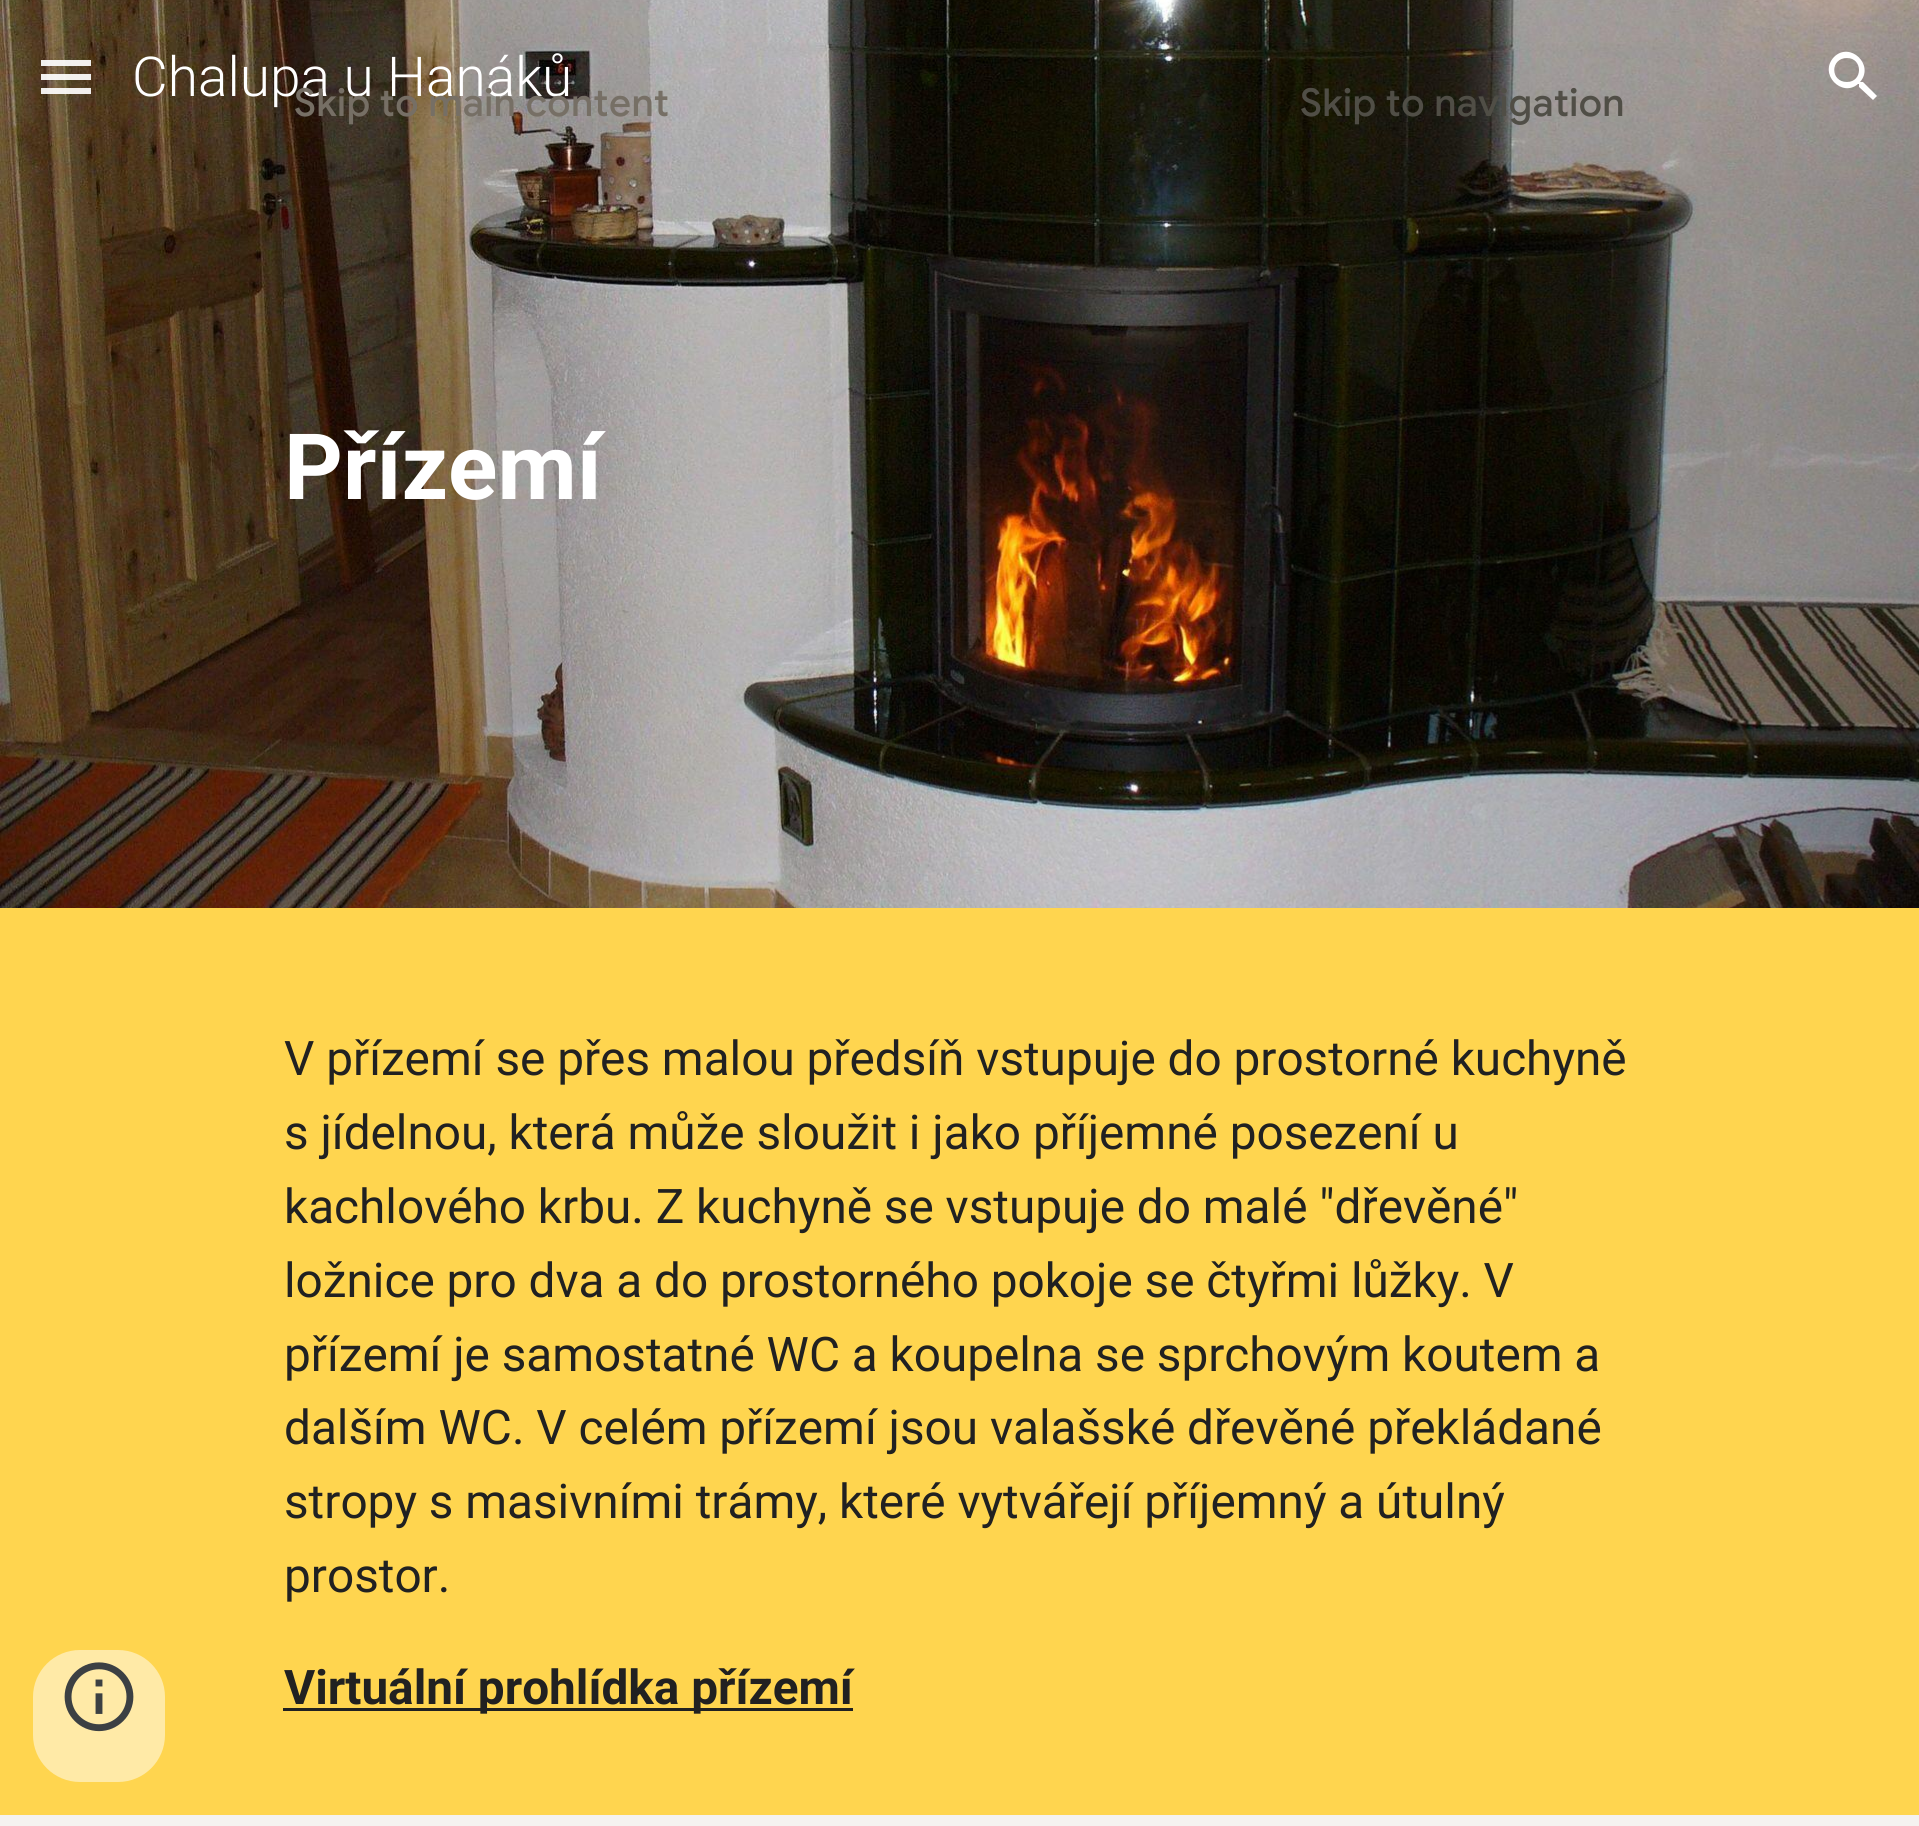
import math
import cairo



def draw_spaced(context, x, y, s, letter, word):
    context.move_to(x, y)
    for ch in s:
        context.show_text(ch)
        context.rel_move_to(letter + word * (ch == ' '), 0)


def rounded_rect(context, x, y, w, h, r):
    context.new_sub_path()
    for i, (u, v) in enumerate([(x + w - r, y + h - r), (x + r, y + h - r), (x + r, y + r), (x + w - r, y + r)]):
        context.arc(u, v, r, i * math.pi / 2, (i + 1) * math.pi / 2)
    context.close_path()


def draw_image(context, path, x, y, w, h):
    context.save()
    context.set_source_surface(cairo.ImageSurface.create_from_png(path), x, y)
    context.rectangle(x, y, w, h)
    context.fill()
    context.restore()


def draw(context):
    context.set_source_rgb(245 / 255, 242 / 255, 240 / 255)
    context.paint()
    draw_image(context, "images/2.png", 0, 0, 1919, 908)
    context.set_source_rgba(1, 1, 1, 0.92)
    context.rectangle(41, 60, 50, 6)
    context.fill()
    context.rectangle(41, 74, 50, 6)
    context.fill()
    context.rectangle(41, 88, 50, 6)
    context.fill()
    context.set_source_rgb(1, 1, 1)
    context.new_path()
    context.move_to(1863, 82)
    context.line_to(1861, 82)
    context.line_to(1860, 82)
    context.curve_to(1875, 65, 1850, 41, 1834, 57)
    context.curve_to(1818, 74, 1842, 98, 1858, 84)
    context.line_to(1859, 84)
    context.line_to(1859, 87)
    context.line_to(1873, 100)
    context.line_to(1877, 96)
    context.close_path()
    context.move_to(1847, 82)
    context.curve_to(1830, 82, 1830, 58, 1847, 58)
    context.curve_to(1863, 58, 1863, 82, 1847, 82)
    context.close_path()
    context.fill()
    context.set_source_rgb(1, 213 / 255, 79 / 255)
    context.rectangle(0, 908, 1919, 907)
    context.fill()
    context.set_source_rgb(1, 234 / 255, 167 / 255)
    rounded_rect(context, 33, 1650, 132, 132, 47)
    context.fill()
    draw_image(context, "images/1.png", 64, 1662, 70, 70)
    context.set_source_rgb(33 / 255, 33 / 255, 33 / 255)
    context.rectangle(283, 1708, 570, 3)
    context.fill()
    context.select_font_face("Roboto Light")
    context.set_font_size(55)
    context.set_source_rgb(1, 1, 1)
    context.move_to(132, 96)
    context.show_text("Chalupa u Hanáků")
    context.select_font_face("Roboto", cairo.FontSlant.NORMAL, cairo.FontWeight.BOLD)
    context.set_font_size(91.5)
    context.move_to(284, 499)
    context.show_text("Přízemí")
    context.select_font_face("Roboto")
    context.set_font_size(47.7)
    context.set_source_rgb(33 / 255, 33 / 255, 33 / 255)
    context.move_to(284, 1075)
    context.show_text("V přízemí se přes malou předsíň vstupuje do prostorné kuchyně")
    context.move_to(284, 1149)
    context.show_text("s jídelnou, která může sloužit i jako příjemné posezení u")
    context.move_to(284, 1223)
    context.show_text("kachlového krbu. Z kuchyně se vstupuje do malé \"dřevěné\"")
    context.move_to(284, 1297)
    context.show_text("ložnice pro dva a do prostorného pokoje se čtyřmi lůžky. V")
    context.move_to(284, 1371)
    context.show_text("přízemí je samostatné WC a koupelna se sprchovým koutem a")
    context.move_to(284, 1444)
    context.show_text("dalším WC. V celém přízemí jsou valašské dřevěné překládané")
    context.move_to(284, 1518)
    context.show_text("stropy s masivními trámy, které vytvářejí příjemný a útulný")
    context.move_to(284, 1592)
    context.show_text("prostor.")
    context.select_font_face("Roboto", cairo.FontSlant.NORMAL, cairo.FontWeight.BOLD)
    context.move_to(284, 1704)
    context.show_text("Virtuální prohlídka přízemí")
    context.select_font_face("Google Sans Medium")
    context.set_font_size(38.5)
    context.set_source_rgb(118 / 255, 111 / 255, 101 / 255)
    draw_spaced(context, 294, 116, "Skip to main content", 0.4, 0)
    context.set_source_rgb(80 / 255, 78 / 255, 70 / 255)
    draw_spaced(context, 1300, 116, "Skip to navigation", 0.4, 0)


surface = cairo.ImageSurface(cairo.Format.RGB24, 1919, 1826)
context = cairo.Context(surface)
options = cairo.FontOptions()
options.set_hint_metrics(cairo.HintMetrics.OFF)
options.set_hint_style(cairo.HintStyle.NONE)
context.set_font_options(options)
context.set_miter_limit(4)
draw(context)
surface.write_to_png("out.png")
